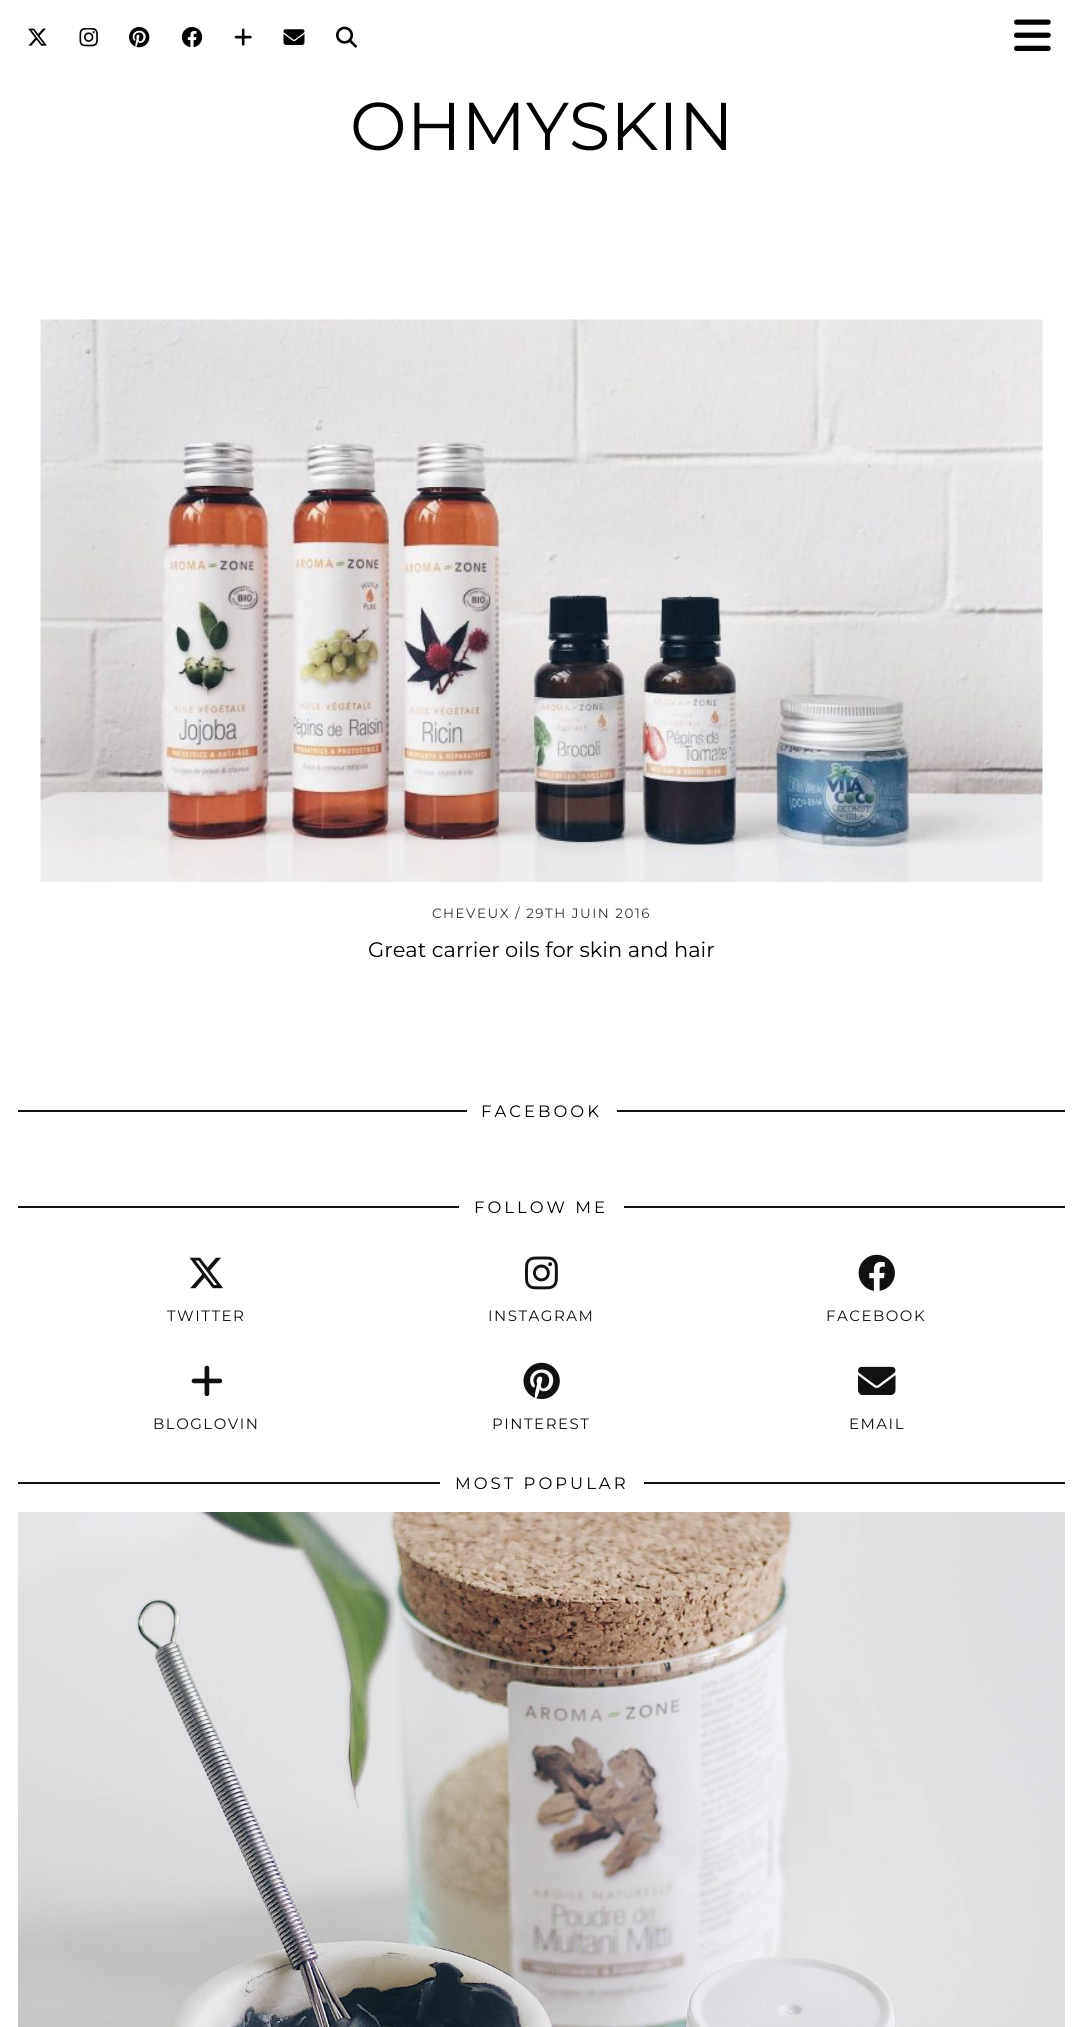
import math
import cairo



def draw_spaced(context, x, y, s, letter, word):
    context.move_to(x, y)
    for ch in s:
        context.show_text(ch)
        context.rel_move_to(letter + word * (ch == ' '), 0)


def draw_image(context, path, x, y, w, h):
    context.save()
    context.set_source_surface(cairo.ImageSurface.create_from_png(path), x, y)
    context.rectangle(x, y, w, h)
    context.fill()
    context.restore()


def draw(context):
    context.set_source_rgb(1, 1, 1)
    context.paint()
    draw_image(context, "images/1.png", 28, 28, 19, 18)
    draw_image(context, "images/2.png", 79, 27, 19, 20)
    draw_image(context, "images/3.png", 129, 26, 21, 22)
    draw_image(context, "images/4.png", 181, 27, 22, 21)
    draw_image(context, "images/5.png", 234, 28, 18, 18)
    draw_image(context, "images/6.png", 283, 29, 22, 16)
    draw_image(context, "images/7.png", 336, 26, 21, 22)
    draw_image(context, "images/8.png", 1014, 19, 37, 32)
    draw_image(context, "images/9.png", 40, 319, 1003, 563)
    context.set_source_rgb(17 / 255, 17 / 255, 17 / 255)
    context.rectangle(18, 1110, 1047, 2)
    context.fill()
    context.set_source_rgb(1, 1, 1)
    context.rectangle(467, 1110, 150, 2)
    context.fill()
    context.set_source_rgb(17 / 255, 17 / 255, 17 / 255)
    context.rectangle(18, 1206, 1047, 2)
    context.fill()
    context.set_source_rgb(1, 1, 1)
    context.rectangle(459, 1206, 165, 2)
    context.fill()
    draw_image(context, "images/10.png", 189, 1257, 35, 32)
    draw_image(context, "images/11.png", 525, 1256, 33, 34)
    draw_image(context, "images/12.png", 858, 1254, 37, 37)
    draw_image(context, "images/13.png", 191, 1365, 32, 32)
    draw_image(context, "images/14.png", 523, 1362, 37, 38)
    draw_image(context, "images/15.png", 858, 1366, 38, 29)
    context.set_source_rgb(17 / 255, 17 / 255, 17 / 255)
    context.rectangle(18, 1482, 1047, 2)
    context.fill()
    context.set_source_rgb(1, 1, 1)
    context.rectangle(440, 1482, 204, 2)
    context.fill()
    draw_image(context, "images/16.png", 18, 1512, 1047, 515)
    context.select_font_face("Montserrat Thin")
    context.set_font_size(67.5)
    context.set_source_rgb(0, 0, 0)
    context.move_to(350, 150)
    context.show_text("OHMYSKIN")
    context.set_font_size(13.5)
    context.set_source_rgb(51 / 255, 51 / 255, 51 / 255)
    draw_spaced(context, 432, 918, "CHEVEUX / 29TH JUIN 2016", 1.5, 0)
    context.set_font_size(21)
    context.set_source_rgb(0, 0, 0)
    context.move_to(368, 957)
    context.show_text("Great carrier oils for skin and hair")
    context.set_font_size(16.5)
    draw_spaced(context, 481, 1117, "FACEBOOK", 3, 0)
    draw_spaced(context, 474, 1213, "FOLLOW ME", 3, 0)
    context.set_font_size(15)
    context.set_source_rgb(17 / 255, 17 / 255, 17 / 255)
    draw_spaced(context, 167, 1321, "TWITTER", 1.5, 0)
    draw_spaced(context, 488, 1321, "INSTAGRAM", 1.5, 0)
    draw_spaced(context, 826, 1321, "FACEBOOK", 1.5, 0)
    draw_spaced(context, 153, 1429, "BLOGLOVIN", 1.5, 0)
    draw_spaced(context, 492, 1429, "PINTEREST", 1.5, 0)
    draw_spaced(context, 849, 1429, "EMAIL", 1.5, 0)
    context.set_font_size(16.5)
    context.set_source_rgb(0, 0, 0)
    draw_spaced(context, 455, 1489, "MOST POPULAR", 3, 0)


surface = cairo.ImageSurface(cairo.Format.RGB24, 1082, 2027)
context = cairo.Context(surface)
options = cairo.FontOptions()
options.set_hint_metrics(cairo.HintMetrics.OFF)
options.set_hint_style(cairo.HintStyle.NONE)
context.set_font_options(options)
context.set_miter_limit(4)
draw(context)
surface.write_to_png("out.png")
